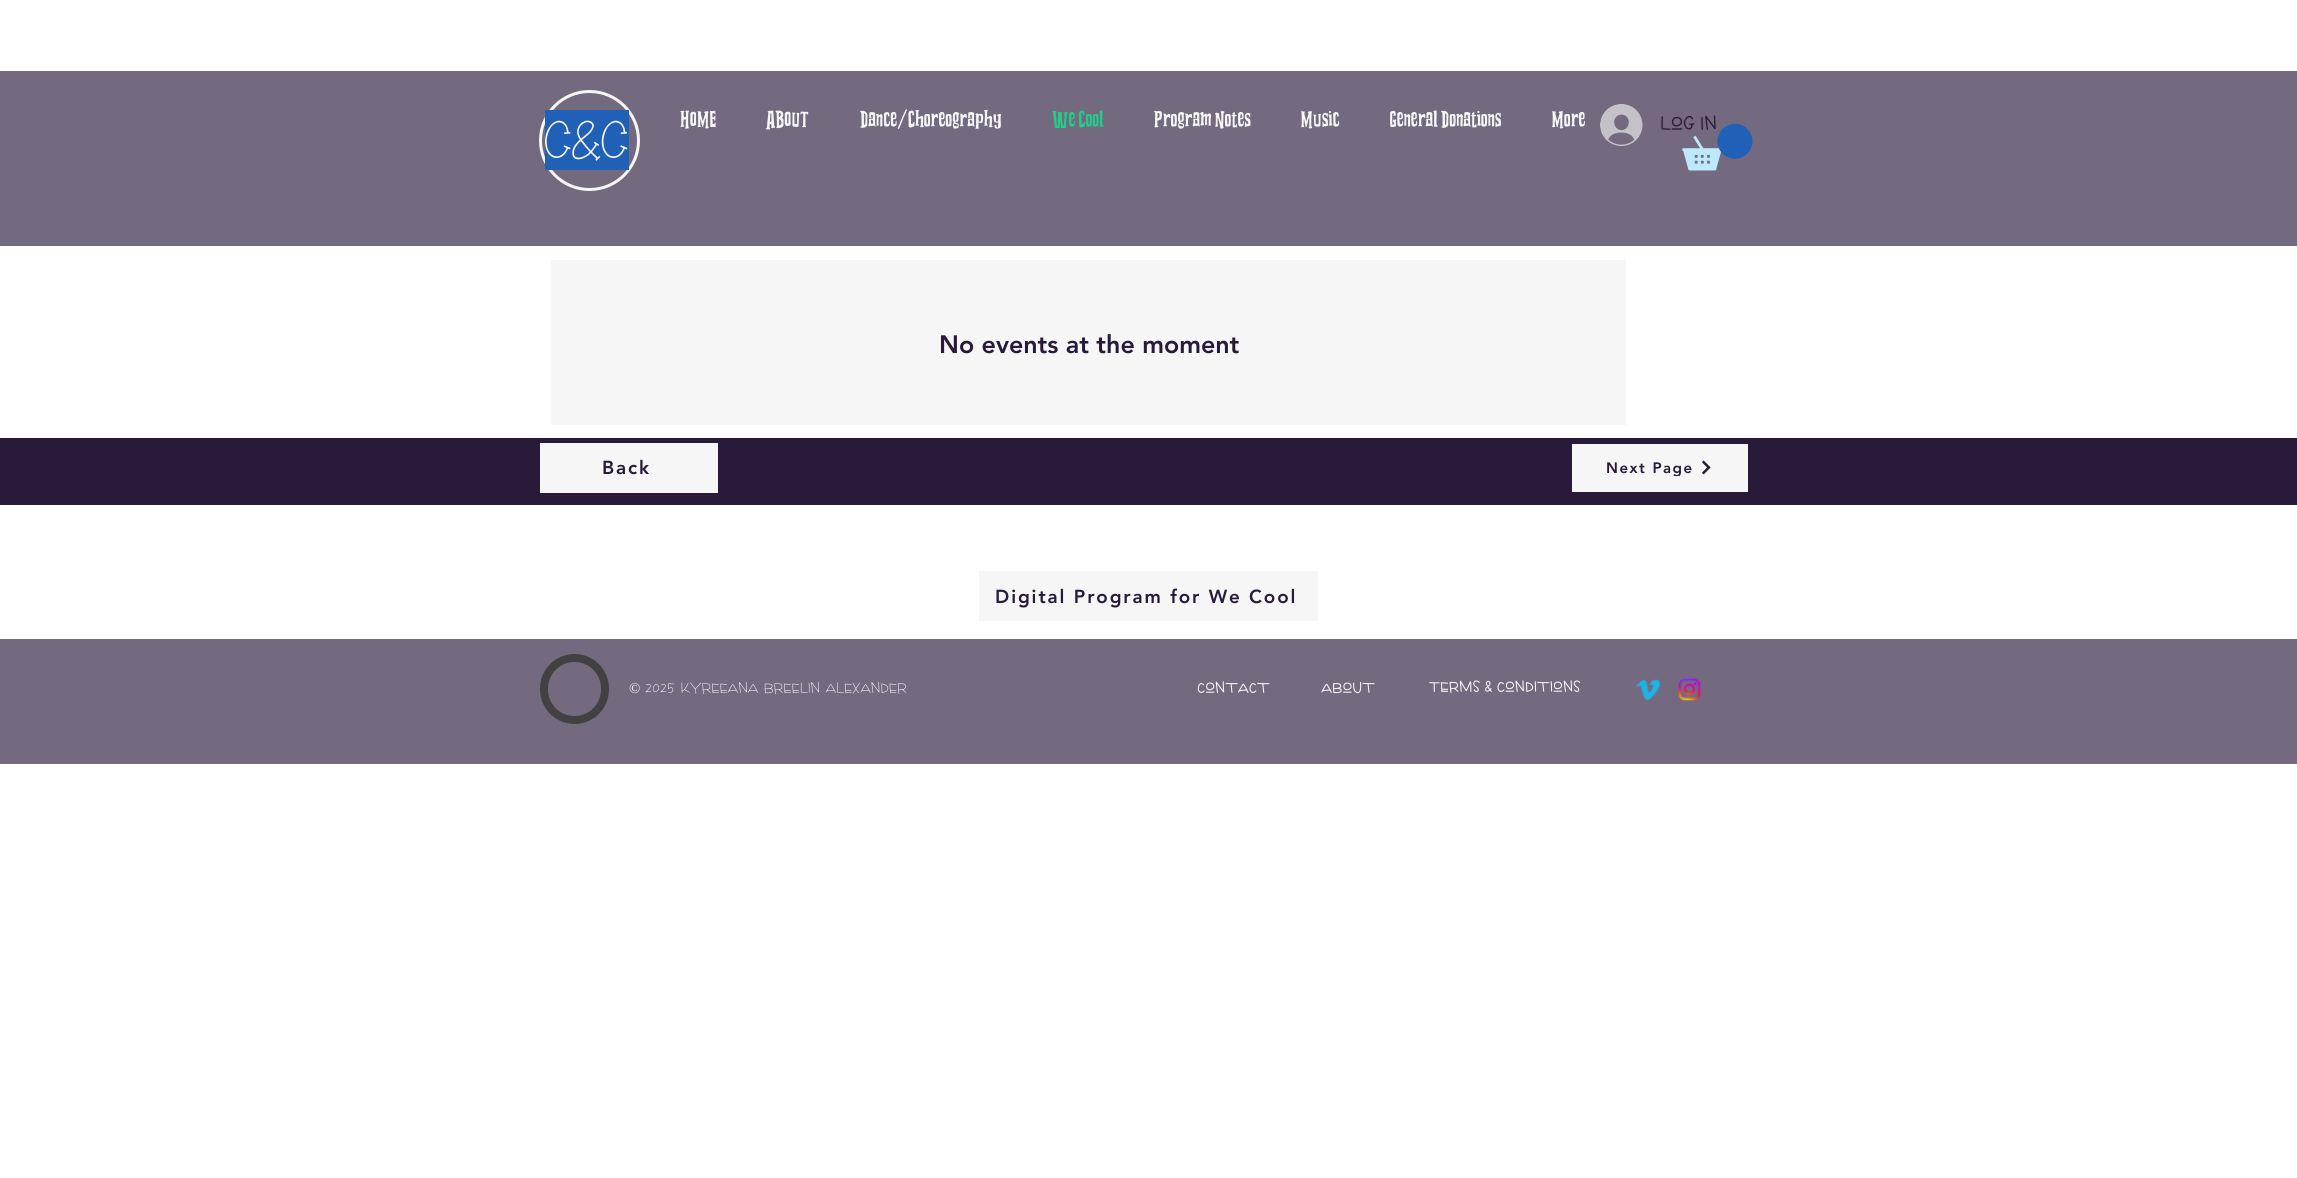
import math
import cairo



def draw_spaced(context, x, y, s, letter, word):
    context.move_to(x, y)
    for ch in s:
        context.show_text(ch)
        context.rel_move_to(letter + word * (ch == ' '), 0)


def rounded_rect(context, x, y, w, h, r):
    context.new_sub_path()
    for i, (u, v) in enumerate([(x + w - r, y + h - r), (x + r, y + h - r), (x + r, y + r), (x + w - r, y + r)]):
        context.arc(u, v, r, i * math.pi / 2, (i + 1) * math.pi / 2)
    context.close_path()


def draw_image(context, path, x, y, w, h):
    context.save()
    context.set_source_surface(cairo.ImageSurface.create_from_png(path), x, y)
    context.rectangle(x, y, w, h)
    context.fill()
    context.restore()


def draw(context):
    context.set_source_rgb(1, 1, 1)
    context.paint()
    context.set_source_rgb(116 / 255, 106 / 255, 127 / 255)
    context.rectangle(0, 71, 2297, 175)
    context.fill()
    context.arc(589.5, 140.5, 49, 0, 2 * math.pi)
    context.set_source_rgb(246 / 255, 246 / 255, 246 / 255)
    context.set_line_width(3)
    context.stroke()
    context.set_source_rgb(32 / 255, 97 / 255, 183 / 255)
    context.rectangle(545, 110, 84, 60)
    context.fill()
    draw_image(context, "images/1.png", 1600, 104, 43, 42)
    context.set_source_rgb(246 / 255, 246 / 255, 246 / 255)
    context.rectangle(551, 260, 1075, 165)
    context.fill()
    context.set_source_rgb(40 / 255, 26 / 255, 57 / 255)
    context.rectangle(0, 438, 2297, 67)
    context.fill()
    context.set_source_rgb(246 / 255, 246 / 255, 246 / 255)
    context.rectangle(540, 443, 178, 50)
    context.fill()
    context.rectangle(1572, 444, 176, 48)
    context.fill()
    draw_image(context, "images/3.png", 1702, 460, 9, 15)
    context.rectangle(979, 571, 339, 50)
    context.fill()
    context.set_source_rgb(116 / 255, 106 / 255, 127 / 255)
    context.rectangle(0, 639, 2297, 125)
    context.fill()
    rounded_rect(context, 544, 658, 61, 62, 30.5)
    context.set_source_rgb(65 / 255, 65 / 255, 65 / 255)
    context.set_line_width(8)
    context.stroke()
    draw_image(context, "images/4.png", 1636, 678, 25, 23)
    draw_image(context, "images/5.png", 1677, 677, 25, 24)
    context.select_font_face("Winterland")
    context.set_font_size(50)
    context.set_source_rgb(246 / 255, 246 / 255, 246 / 255)
    context.move_to(545, 159)
    context.show_text("C&C")
    context.select_font_face("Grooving")
    context.set_font_size(25)
    context.move_to(681, 128)
    context.show_text("HOME")
    context.move_to(767, 128)
    context.show_text("ABOUT")
    context.move_to(860, 128)
    context.show_text("Dance/Choreography")
    context.set_source_rgb(32 / 255, 206 / 255, 136 / 255)
    context.move_to(1053, 128)
    context.show_text("We Cool")
    context.set_source_rgb(246 / 255, 246 / 255, 246 / 255)
    context.move_to(1154, 128)
    context.show_text("Program Notes")
    context.move_to(1301, 128)
    context.show_text("Music")
    context.move_to(1390, 128)
    context.show_text("General Donations")
    context.move_to(1552, 128)
    context.show_text("More")
    context.select_font_face("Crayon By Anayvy")
    context.set_font_size(18.75)
    context.set_source_rgb(40 / 255, 26 / 255, 57 / 255)
    context.move_to(1660, 130)
    context.show_text("Log In")
    draw_image(context, "images/2.png", 1682, 123, 71, 48)
    context.select_font_face("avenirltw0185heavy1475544 Black")
    context.set_font_size(25)
    context.move_to(939, 353)
    context.show_text("No events at the moment")
    context.set_font_size(18.75)
    draw_spaced(context, 602, 474, "Back", 1.9, 0)
    context.save()
    context.rectangle(1606, 459, 88, 17)
    context.clip()
    context.set_font_size(15)
    draw_spaced(context, 1606, 473, "Next Page", 1.5, 0)
    context.restore()
    draw_spaced(context, 995, 603, "Digital Program for We Cool", 1.9, 0)
    context.select_font_face("Liberation Serif")
    context.set_font_size(15)
    context.set_source_rgb(246 / 255, 246 / 255, 246 / 255)
    context.move_to(629, 693)
    context.show_text("©")
    context.select_font_face("Crayon By Anayvy Thin")
    context.move_to(645, 693)
    context.show_text("2025 Kyreeana Breelin Alexander")
    context.select_font_face("Crayon By Anayvy")
    context.move_to(1197, 693)
    context.show_text("Contact")
    context.move_to(1321, 693)
    context.show_text("About")
    context.move_to(1429, 692)
    context.show_text("Terms & Conditions")


surface = cairo.ImageSurface(cairo.Format.RGB24, 2297, 1178)
context = cairo.Context(surface)
options = cairo.FontOptions()
options.set_hint_metrics(cairo.HintMetrics.OFF)
options.set_hint_style(cairo.HintStyle.NONE)
context.set_font_options(options)
context.set_miter_limit(4)
draw(context)
surface.write_to_png("out.png")
